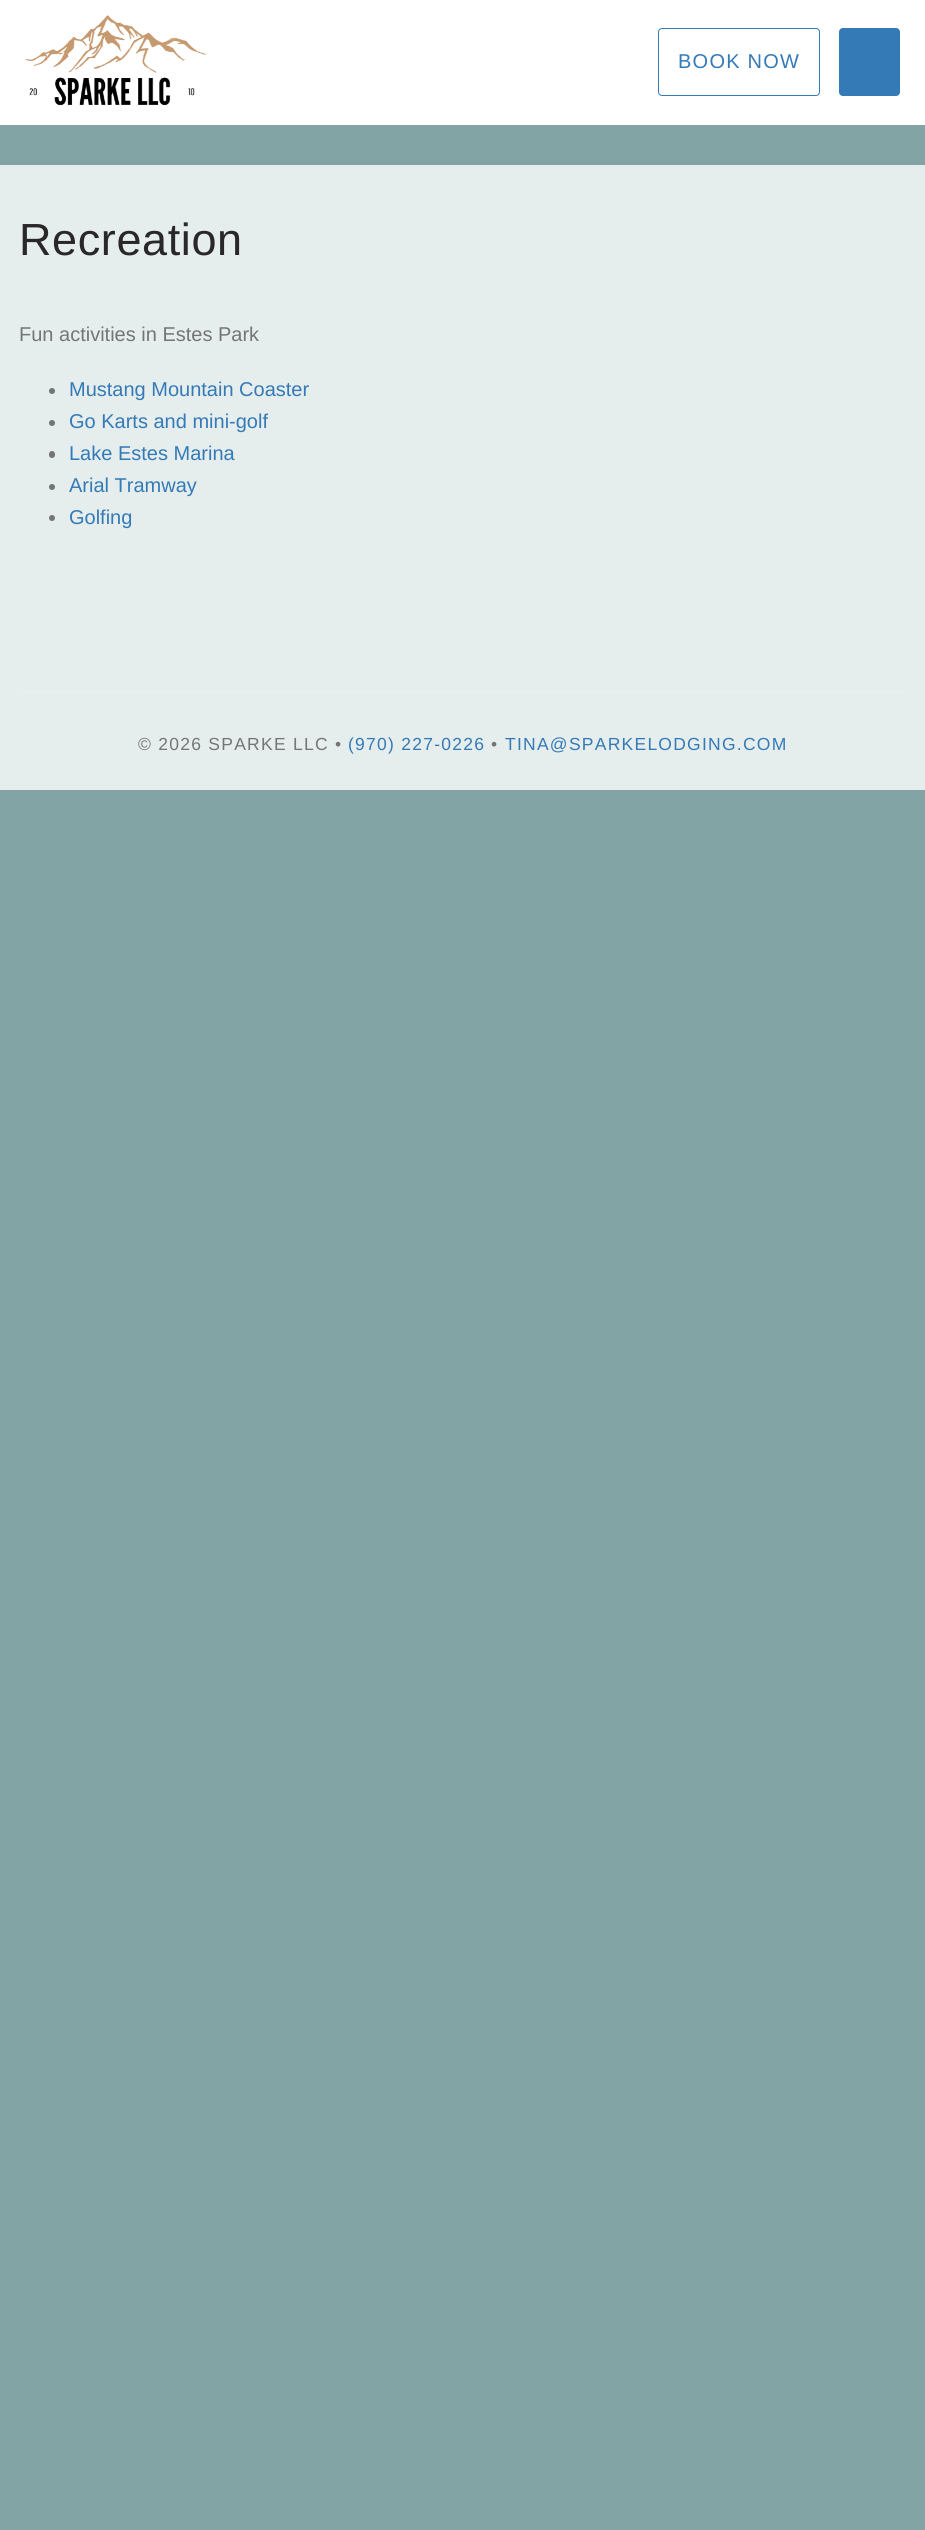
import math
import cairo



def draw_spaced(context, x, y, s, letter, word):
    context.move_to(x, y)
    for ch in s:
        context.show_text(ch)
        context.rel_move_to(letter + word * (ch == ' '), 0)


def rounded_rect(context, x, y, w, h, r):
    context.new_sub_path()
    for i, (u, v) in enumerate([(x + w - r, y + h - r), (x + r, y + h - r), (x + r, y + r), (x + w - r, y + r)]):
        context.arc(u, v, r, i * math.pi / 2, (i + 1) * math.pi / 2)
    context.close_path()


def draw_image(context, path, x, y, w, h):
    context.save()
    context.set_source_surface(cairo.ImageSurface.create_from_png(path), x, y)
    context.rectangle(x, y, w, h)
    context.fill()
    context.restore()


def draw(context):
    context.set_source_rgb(131 / 255, 164 / 255, 164 / 255)
    context.paint()
    context.set_source_rgb(1, 1, 1)
    context.rectangle(0, 0, 925, 125)
    context.fill()
    draw_image(context, "images/1.png", 25, 15, 182, 91)
    rounded_rect(context, 658.5, 28.5, 161, 67, 3.5)
    context.set_source_rgb(51 / 255, 122 / 255, 183 / 255)
    context.set_line_width(1)
    context.stroke()
    rounded_rect(context, 839.5, 28.5, 60, 67, 3.5)
    context.fill_preserve()
    context.stroke()
    context.set_source_rgb(230 / 255, 237 / 255, 237 / 255)
    context.rectangle(0, 165, 925, 625)
    context.fill()
    context.set_source_rgb(117 / 255, 117 / 255, 117 / 255)
    context.arc(52, 391, 3, 0, 2 * math.pi)
    context.fill()
    context.arc(52, 423, 3, 0, 2 * math.pi)
    context.fill()
    rounded_rect(context, 49, 451, 6, 7, 3)
    context.fill()
    context.arc(52, 487, 3, 0, 2 * math.pi)
    context.fill()
    context.arc(52, 518, 3, 0, 2 * math.pi)
    context.fill()
    context.set_source_rgb(238 / 255, 238 / 255, 238 / 255)
    context.rectangle(19, 691, 887, 1)
    context.fill()
    context.select_font_face("Liberation Sans")
    context.set_font_size(20)
    context.set_source_rgb(51 / 255, 122 / 255, 183 / 255)
    draw_spaced(context, 678, 68, "BOOK NOW", 1.25, 0)
    context.set_font_size(45)
    context.set_source_rgb(41 / 255, 39 / 255, 39 / 255)
    draw_spaced(context, 19, 255, "Recreation", 0.6, 0)
    context.set_font_size(20)
    context.set_source_rgb(117 / 255, 117 / 255, 117 / 255)
    context.move_to(19, 341)
    context.show_text("Fun activities in Estes Park")
    context.set_source_rgb(51 / 255, 122 / 255, 183 / 255)
    context.move_to(69, 396)
    context.show_text("Mustang Mountain Coaster")
    context.move_to(69, 428)
    context.show_text("Go Karts and mini-golf")
    context.move_to(69, 460)
    context.show_text("Lake Estes Marina")
    context.move_to(69, 492)
    context.show_text("Arial Tramway")
    context.move_to(69, 524)
    context.show_text("Golfing")
    context.set_font_size(17.5)
    context.set_source_rgb(117 / 255, 117 / 255, 117 / 255)
    draw_spaced(context, 138, 750, "© 2026 SPARKE LLC •", 1.25, 0)
    context.set_source_rgb(51 / 255, 122 / 255, 183 / 255)
    draw_spaced(context, 348, 750, "(970) 227-0226", 1.25, 0)
    context.set_source_rgb(117 / 255, 117 / 255, 117 / 255)
    draw_spaced(context, 491, 750, "•", 1.25, 0)
    context.set_source_rgb(51 / 255, 122 / 255, 183 / 255)
    draw_spaced(context, 505, 750, "TINA@SPARKELODGING.COM", 1.25, 0)


surface = cairo.ImageSurface(cairo.Format.RGB24, 925, 2530)
context = cairo.Context(surface)
options = cairo.FontOptions()
options.set_hint_metrics(cairo.HintMetrics.OFF)
options.set_hint_style(cairo.HintStyle.NONE)
context.set_font_options(options)
context.set_miter_limit(4)
draw(context)
surface.write_to_png("out.png")
